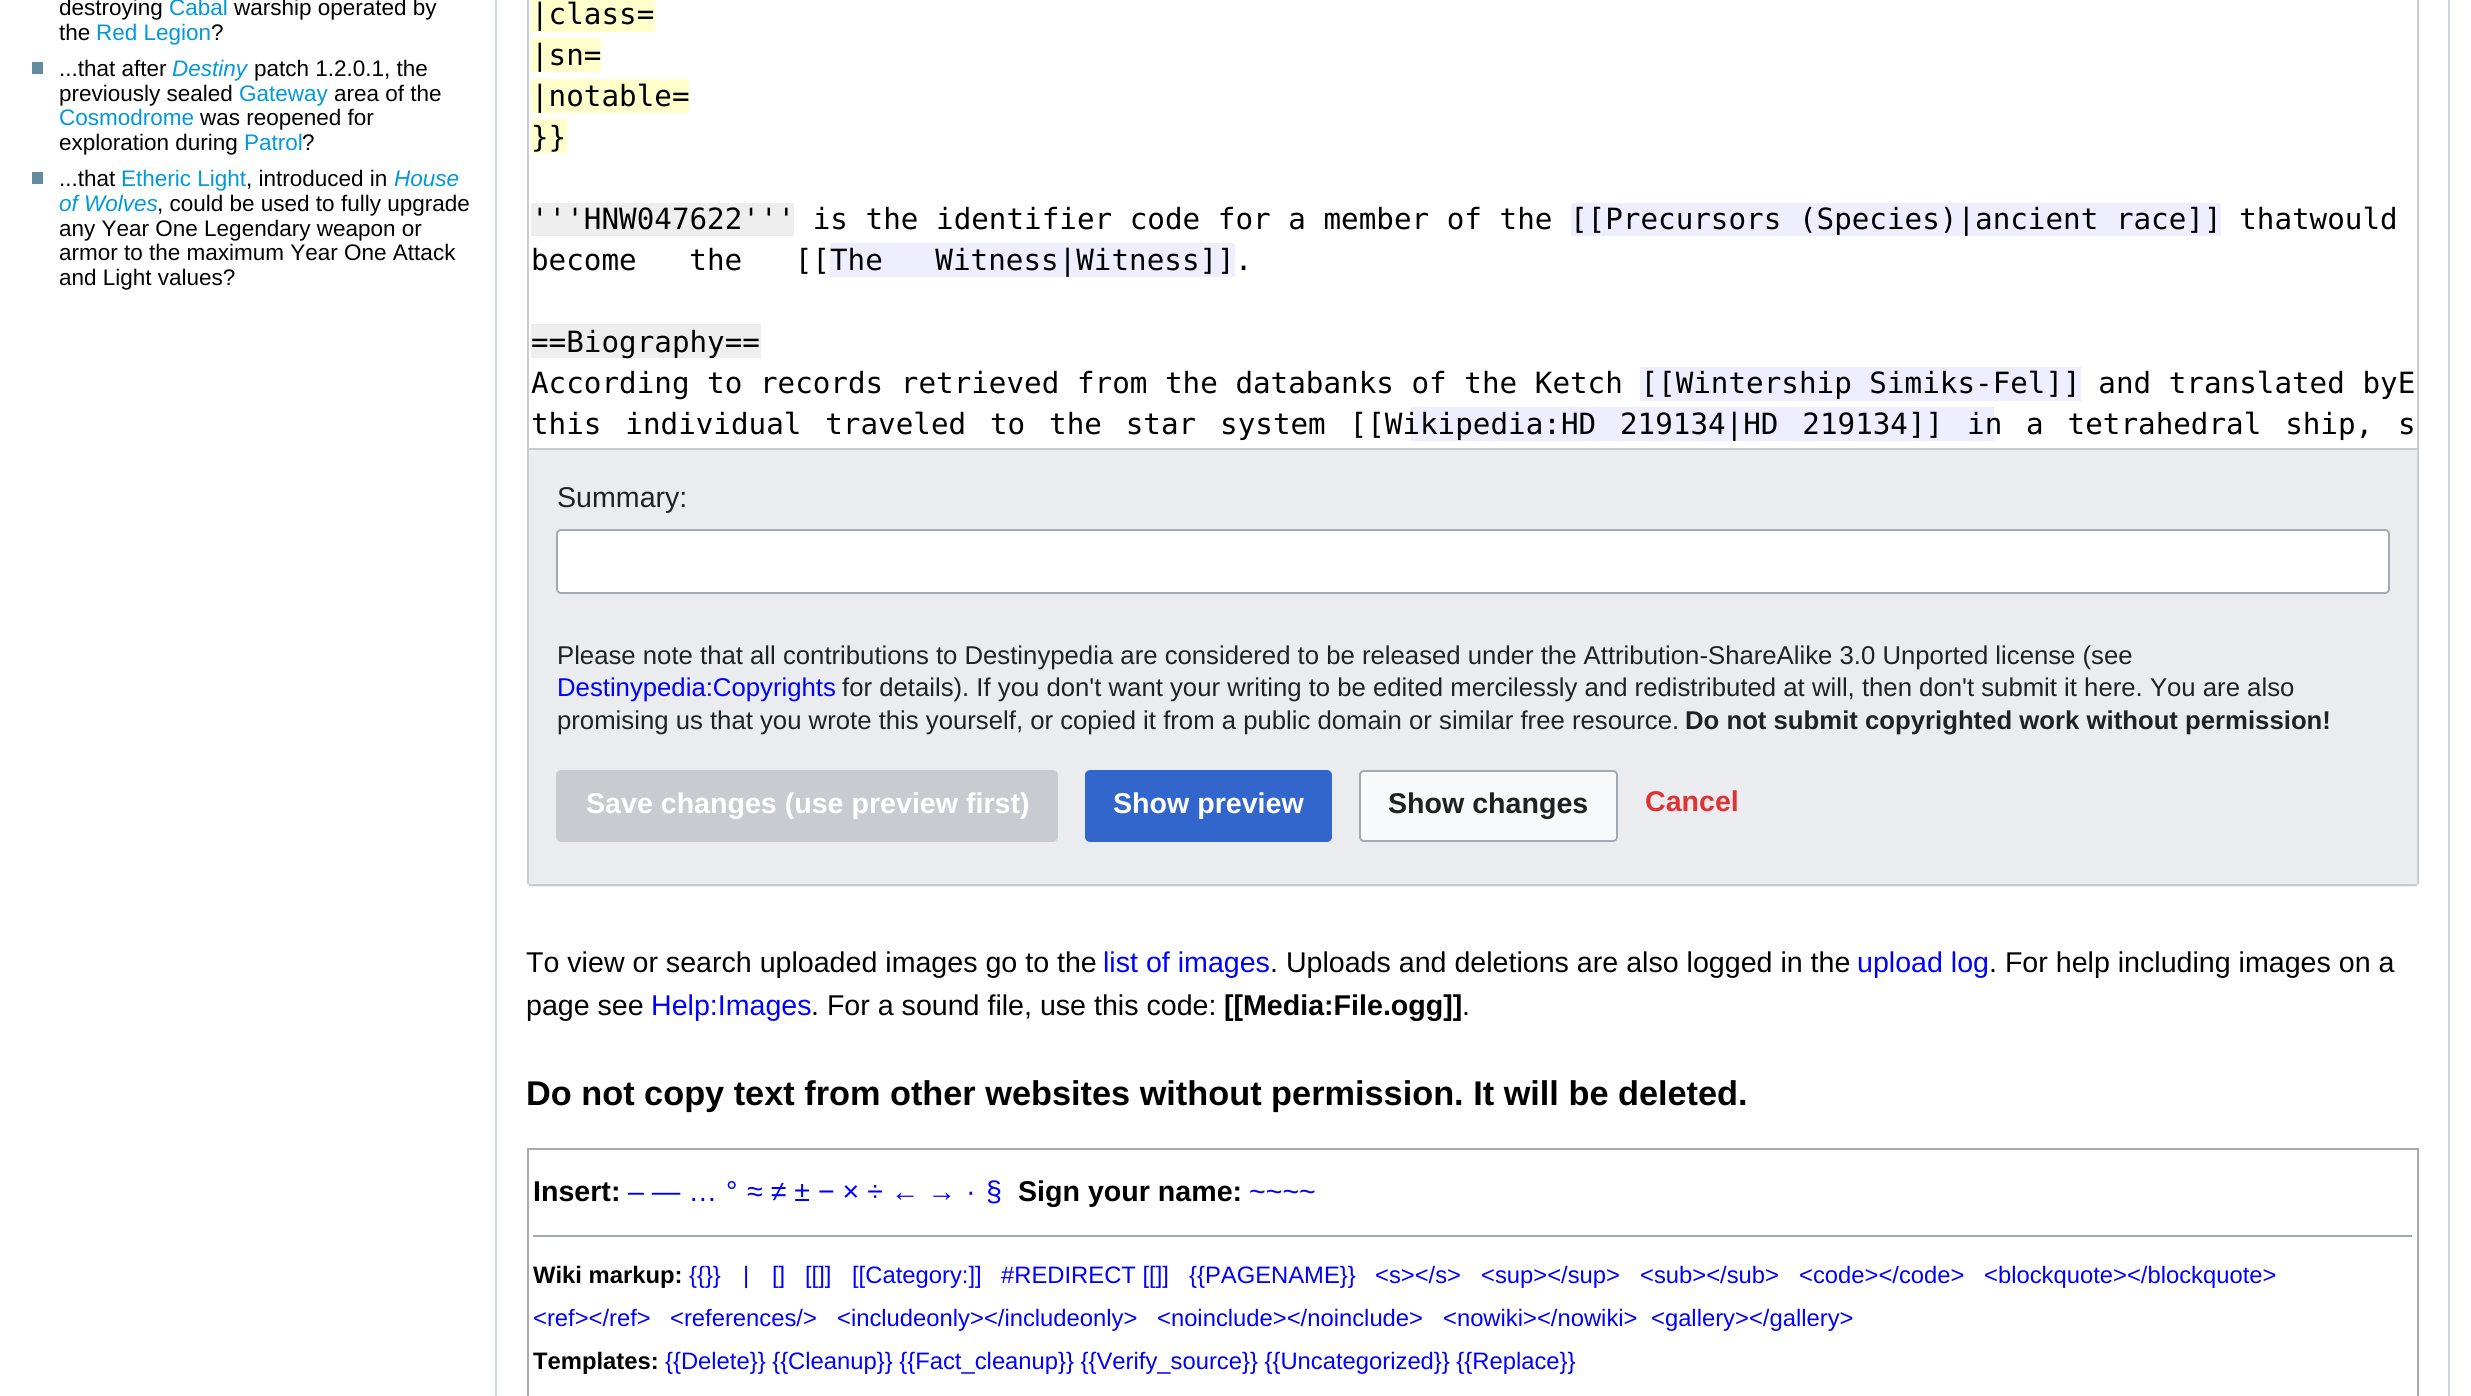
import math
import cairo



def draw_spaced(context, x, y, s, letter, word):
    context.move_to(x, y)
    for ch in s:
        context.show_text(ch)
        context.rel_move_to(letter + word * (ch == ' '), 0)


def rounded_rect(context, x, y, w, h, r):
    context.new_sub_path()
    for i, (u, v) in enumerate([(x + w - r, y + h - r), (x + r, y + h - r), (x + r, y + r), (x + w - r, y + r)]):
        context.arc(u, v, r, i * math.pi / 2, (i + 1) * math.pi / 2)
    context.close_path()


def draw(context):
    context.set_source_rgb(1, 1, 1)
    context.paint()
    context.set_source_rgb(99 / 255, 140 / 255, 156 / 255)
    context.rectangle(32, 62, 11, 12)
    context.fill()
    context.rectangle(32, 172, 11, 12)
    context.fill()
    context.rectangle(496, -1, 1953, 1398)
    context.set_source_rgb(201 / 255, 214 / 255, 224 / 255)
    context.stroke()
    context.rectangle(528, -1, 1890, 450)
    context.set_source_rgb(200 / 255, 204 / 255, 209 / 255)
    context.stroke()
    context.set_source_rgb(1, 1, 204 / 255)
    context.rectangle(531, 0, 124, 32)
    context.fill()
    context.rectangle(531, 38, 70, 34)
    context.fill()
    context.rectangle(531, 79, 158, 34)
    context.fill()
    context.rectangle(531, 119, 36, 34)
    context.fill()
    context.set_source_rgb(238 / 255, 238 / 255, 238 / 255)
    context.rectangle(531, 203, 263, 33)
    context.fill()
    context.set_source_rgb(238 / 255, 238 / 255, 1)
    context.rectangle(1571, 203, 650, 33)
    context.fill()
    context.rectangle(830, 243, 405, 34)
    context.fill()
    context.set_source_rgb(238 / 255, 238 / 255, 238 / 255)
    context.rectangle(531, 324, 230, 34)
    context.fill()
    context.set_source_rgb(238 / 255, 238 / 255, 1)
    context.rectangle(1640, 367, 441, 34)
    context.fill()
    context.rectangle(1411, 407, 583, 34)
    context.fill()
    context.set_source_rgb(234 / 255, 236 / 255, 240 / 255)
    context.new_path()
    context.move_to(527, 450)
    context.line_to(2419, 450)
    context.line_to(2419, 882)
    context.curve_to(2419, 885, 2417, 887, 2414, 887)
    context.line_to(532, 887)
    context.curve_to(529, 887, 527, 885, 527, 882)
    context.close_path()
    context.fill()
    context.set_source_rgb(200 / 255, 204 / 255, 209 / 255)
    context.rectangle(2417, 450, 2, 434)
    context.fill()
    context.rectangle(529, 884, 1888, 2)
    context.fill()
    context.rectangle(527, 450, 2, 434)
    context.fill()
    context.set_source_rgb(1, 1, 1)
    rounded_rect(context, 557, 530, 1832, 63, 4)
    context.fill_preserve()
    context.set_source_rgb(162 / 255, 169 / 255, 177 / 255)
    context.stroke()
    context.set_source_rgb(200 / 255, 204 / 255, 209 / 255)
    rounded_rect(context, 557, 771, 500, 70, 4)
    context.fill_preserve()
    context.stroke()
    context.set_source_rgb(51 / 255, 102 / 255, 204 / 255)
    rounded_rect(context, 1086, 771, 245, 70, 4)
    context.fill_preserve()
    context.stroke()
    context.set_source_rgb(248 / 255, 249 / 255, 250 / 255)
    rounded_rect(context, 1360, 771, 257, 70, 4)
    context.fill_preserve()
    context.set_source_rgb(162 / 255, 169 / 255, 177 / 255)
    context.stroke()
    context.rectangle(528, 1149, 1890, 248)
    context.set_source_rgb(170 / 255, 170 / 255, 170 / 255)
    context.stroke()
    context.set_source_rgb(162 / 255, 169 / 255, 177 / 255)
    context.rectangle(533, 1235, 1879, 2)
    context.fill()
    context.select_font_face("Liberation Sans")
    context.set_font_size(22.5)
    context.set_source_rgb(0, 0, 0)
    context.move_to(59, 15)
    context.show_text("destroying")
    context.set_source_rgb(0, 153 / 255, 217 / 255)
    context.move_to(169, 15)
    context.show_text("Cabal")
    context.set_source_rgb(0, 0, 0)
    context.move_to(234, 15)
    context.show_text("warship operated by")
    context.move_to(59, 40)
    context.show_text("the")
    context.set_source_rgb(0, 153 / 255, 217 / 255)
    context.move_to(96, 40)
    context.show_text("Red Legion")
    context.set_source_rgb(0, 0, 0)
    context.move_to(211, 40)
    context.show_text("?")
    context.move_to(59, 76)
    context.show_text("...that after")
    context.select_font_face("Liberation Sans", cairo.FontSlant.ITALIC)
    context.set_source_rgb(0, 153 / 255, 217 / 255)
    context.move_to(172, 76)
    context.show_text("Destiny")
    context.select_font_face("Liberation Sans")
    context.set_source_rgb(0, 0, 0)
    context.move_to(254, 76)
    context.show_text("patch 1.2.0.1, the")
    context.move_to(59, 101)
    context.show_text("previously sealed")
    context.set_source_rgb(0, 153 / 255, 217 / 255)
    context.move_to(239, 101)
    context.show_text("Gateway")
    context.set_source_rgb(0, 0, 0)
    context.move_to(334, 101)
    context.show_text("area of the")
    context.set_source_rgb(0, 153 / 255, 217 / 255)
    context.move_to(59, 125)
    context.show_text("Cosmodrome")
    context.set_source_rgb(0, 0, 0)
    context.move_to(200, 125)
    context.show_text("was reopened for")
    context.move_to(59, 150)
    context.show_text("exploration during")
    context.set_source_rgb(0, 153 / 255, 217 / 255)
    context.move_to(244, 150)
    context.show_text("Patrol")
    context.set_source_rgb(0, 0, 0)
    context.move_to(302, 150)
    context.show_text("?")
    context.move_to(59, 186)
    context.show_text("...that")
    context.set_source_rgb(0, 153 / 255, 217 / 255)
    context.move_to(121, 186)
    context.show_text("Etheric Light")
    context.set_source_rgb(0, 0, 0)
    context.move_to(246, 186)
    context.show_text(", introduced in")
    context.select_font_face("Liberation Sans", cairo.FontSlant.ITALIC)
    context.set_source_rgb(0, 153 / 255, 217 / 255)
    context.move_to(394, 186)
    context.show_text("House")
    context.move_to(59, 211)
    context.show_text("of Wolves")
    context.select_font_face("Liberation Sans")
    context.set_source_rgb(0, 0, 0)
    context.move_to(157, 211)
    context.show_text(", could be used to fully upgrade")
    context.move_to(59, 236)
    context.show_text("any Year One Legendary weapon or")
    context.move_to(59, 260)
    context.show_text("armor to the maximum Year One Attack")
    context.move_to(59, 285)
    context.show_text("and Light values?")
    context.select_font_face("DejaVu Sans Mono")
    context.set_font_size(29.25)
    context.move_to(531, 24)
    context.show_text("|class=")
    context.move_to(531, 65)
    context.show_text("|sn=")
    context.move_to(531, 106)
    context.show_text("|notable=")
    context.move_to(531, 147)
    context.show_text("}}")
    context.move_to(531, 229)
    context.show_text("'''HNW047622''' is the identifier code for a member of the [[Precursors (Species)|ancient race]] thatwould")
    draw_spaced(context, 531, 270, "become the [[The Witness|Witness]].", 0, 35)
    context.move_to(531, 352)
    context.show_text("==Biography==")
    context.move_to(531, 393)
    context.show_text("According to records retrieved from the databanks of the Ketch [[Wintership Simiks-Fel]] and translated byE")
    draw_spaced(context, 531, 434, "this individual traveled to the star system [[Wikipedia:HD 219134|HD 219134]] in a tetrahedral ship,", 0, 6.25)
    context.move_to(2398, 434)
    context.show_text("s")
    context.select_font_face("Liberation Sans")
    context.set_font_size(28.6)
    context.set_source_rgb(32 / 255, 33 / 255, 34 / 255)
    context.move_to(557, 507)
    context.show_text("Summary:")
    context.set_font_size(25.72)
    context.move_to(557, 664)
    context.show_text("Please note that all contributions to Destinypedia are considered to be released under the Attribution-ShareAlike 3.0 Unported license (see")
    context.set_source_rgb(0, 0, 1)
    context.move_to(557, 696)
    context.show_text("Destinypedia:Copyrights")
    context.set_source_rgb(32 / 255, 33 / 255, 34 / 255)
    context.move_to(842, 696)
    context.show_text("for details). If you don't want your writing to be edited mercilessly and redistributed at will, then don't submit it here. You are also")
    context.move_to(557, 729)
    context.show_text("promising us that you wrote this yourself, or copied it from a public domain or similar free resource.")
    context.select_font_face("Liberation Sans", cairo.FontSlant.NORMAL, cairo.FontWeight.BOLD)
    context.move_to(1685, 729)
    context.show_text("Do not submit copyrighted work without permission!")
    context.set_font_size(28.6)
    context.set_source_rgb(1, 1, 1)
    context.move_to(586, 813)
    context.show_text("Save changes (use preview first)")
    context.move_to(1113, 813)
    context.show_text("Show preview")
    context.set_source_rgb(32 / 255, 33 / 255, 34 / 255)
    context.move_to(1388, 813)
    context.show_text("Show changes")
    context.set_source_rgb(221 / 255, 51 / 255, 51 / 255)
    context.move_to(1645, 811)
    context.show_text("Cancel")
    context.select_font_face("Liberation Sans")
    context.set_source_rgb(0, 0, 0)
    context.move_to(526, 972)
    context.show_text("To view or search uploaded images go to the")
    context.set_source_rgb(0, 0, 1)
    context.move_to(1103, 972)
    context.show_text("list of images")
    context.set_source_rgb(0, 0, 0)
    context.move_to(1270, 972)
    context.show_text(". Uploads and deletions are also logged in the")
    context.set_source_rgb(0, 0, 1)
    context.move_to(1857, 972)
    context.show_text("upload log")
    context.set_source_rgb(0, 0, 0)
    context.move_to(1989, 972)
    context.show_text(". For help including images on a")
    context.move_to(526, 1015)
    context.show_text("page see")
    context.set_source_rgb(0, 0, 1)
    context.move_to(651, 1015)
    context.show_text("Help:Images")
    context.set_source_rgb(0, 0, 0)
    context.move_to(811, 1015)
    context.show_text(". For a sound file, use this code:")
    context.select_font_face("Liberation Sans", cairo.FontSlant.NORMAL, cairo.FontWeight.BOLD)
    context.move_to(1224, 1015)
    context.show_text("[[Media:File.ogg]]")
    context.select_font_face("Liberation Sans")
    context.move_to(1462, 1015)
    context.show_text(".")
    context.select_font_face("Liberation Sans", cairo.FontSlant.NORMAL, cairo.FontWeight.BOLD)
    context.set_font_size(34.3)
    context.move_to(526, 1105)
    context.show_text("Do not copy text from other websites without permission. It will be deleted.")
    context.set_font_size(28.6)
    context.move_to(533, 1201)
    context.show_text("Insert:")
    context.select_font_face("Liberation Sans")
    context.set_source_rgb(0, 0, 1)
    context.move_to(628, 1201)
    context.show_text("– — …")
    context.move_to(726, 1201)
    context.show_text("°")
    context.move_to(747, 1201)
    context.show_text("≈ ≠ ± − × ÷ ← →")
    context.move_to(966, 1201)
    context.show_text("·")
    context.move_to(986, 1201)
    context.show_text("§")
    context.select_font_face("Liberation Sans", cairo.FontSlant.NORMAL, cairo.FontWeight.BOLD)
    context.set_source_rgb(0, 0, 0)
    context.move_to(1018, 1201)
    context.show_text("Sign your name:")
    context.select_font_face("Liberation Sans")
    context.set_source_rgb(0, 0, 1)
    context.move_to(1249, 1201)
    context.show_text("~~~~")
    context.select_font_face("Liberation Sans", cairo.FontSlant.NORMAL, cairo.FontWeight.BOLD)
    context.set_font_size(23.8)
    context.set_source_rgb(0, 0, 0)
    context.move_to(533, 1283)
    context.show_text("Wiki markup:")
    context.select_font_face("Liberation Sans")
    context.set_source_rgb(0, 0, 1)
    context.move_to(689, 1283)
    context.show_text("{{}}")
    context.move_to(743, 1283)
    context.show_text("|")
    context.move_to(772, 1283)
    context.show_text("[]")
    context.move_to(805, 1283)
    context.show_text("[[]]")
    context.move_to(852, 1283)
    context.show_text("[[Category:]]")
    context.move_to(1001, 1283)
    context.show_text("#REDIRECT [[]]")
    context.move_to(1189, 1283)
    context.show_text("{{PAGENAME}}")
    context.move_to(1375, 1283)
    context.show_text("<s></s>")
    context.move_to(1481, 1283)
    context.show_text("<sup></sup>")
    context.move_to(1640, 1283)
    context.show_text("<sub></sub>")
    context.move_to(1799, 1283)
    context.show_text("<code></code>")
    context.move_to(1984, 1283)
    context.show_text("<blockquote></blockquote>")
    context.move_to(533, 1326)
    context.show_text("<ref></ref>")
    context.move_to(670, 1326)
    context.show_text("<references/>")
    context.move_to(837, 1326)
    context.show_text("<includeonly></includeonly>")
    context.move_to(1157, 1326)
    context.show_text("<noinclude></noinclude>")
    context.move_to(1443, 1326)
    context.show_text("<nowiki></nowiki>")
    context.move_to(1651, 1326)
    context.show_text("<gallery></gallery>")
    context.select_font_face("Liberation Sans", cairo.FontSlant.NORMAL, cairo.FontWeight.BOLD)
    context.set_source_rgb(0, 0, 0)
    context.move_to(533, 1369)
    context.show_text("Templates:")
    context.select_font_face("Liberation Sans")
    context.set_source_rgb(0, 0, 1)
    context.move_to(665, 1369)
    context.show_text("{{Delete}} {{Cleanup}} {{Fact_cleanup}} {{Verify_source}} {{Uncategorized}} {{Replace}}")


surface = cairo.ImageSurface(cairo.Format.RGB24, 2471, 1396)
context = cairo.Context(surface)
options = cairo.FontOptions()
options.set_hint_metrics(cairo.HintMetrics.OFF)
options.set_hint_style(cairo.HintStyle.NONE)
context.set_font_options(options)
context.set_miter_limit(4)
draw(context)
surface.write_to_png("out.png")
